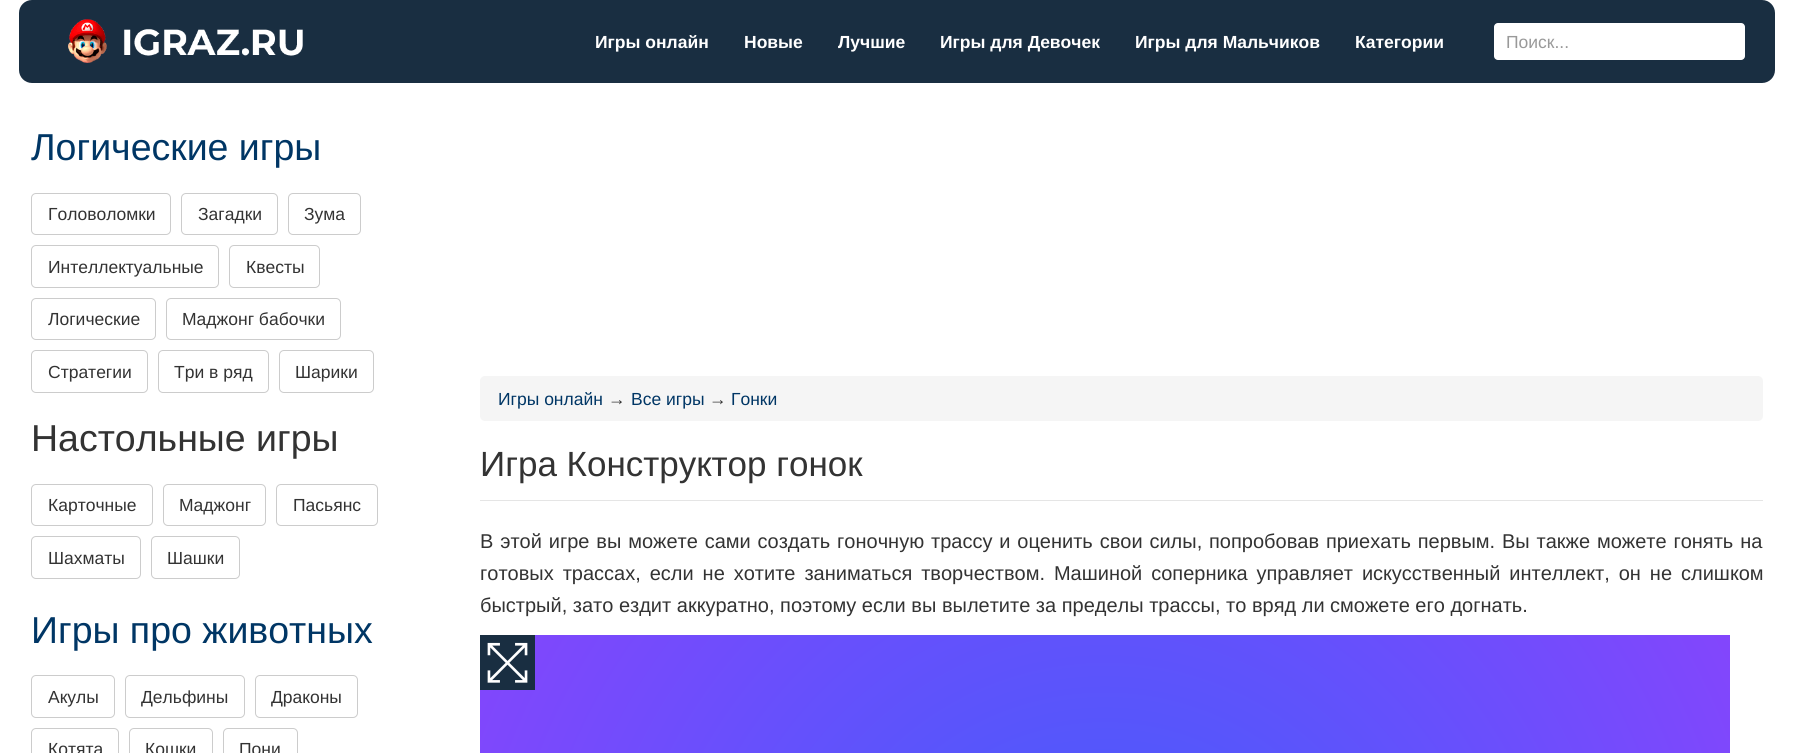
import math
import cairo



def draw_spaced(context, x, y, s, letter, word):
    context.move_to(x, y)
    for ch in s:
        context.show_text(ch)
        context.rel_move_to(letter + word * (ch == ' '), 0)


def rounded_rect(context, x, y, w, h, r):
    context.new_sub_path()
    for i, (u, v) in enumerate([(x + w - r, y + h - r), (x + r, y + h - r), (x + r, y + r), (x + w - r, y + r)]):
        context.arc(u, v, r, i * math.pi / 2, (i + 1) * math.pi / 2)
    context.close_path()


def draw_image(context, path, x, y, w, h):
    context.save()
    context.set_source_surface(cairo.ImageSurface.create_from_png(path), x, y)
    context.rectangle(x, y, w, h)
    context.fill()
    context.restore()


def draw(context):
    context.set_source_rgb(1, 1, 1)
    context.paint()
    context.set_source_rgb(25 / 255, 46 / 255, 65 / 255)
    rounded_rect(context, 19, 0, 1756, 83, 13)
    context.fill()
    draw_image(context, "images/1.png", 68, 19, 235, 44)
    context.set_source_rgb(1, 1, 1)
    rounded_rect(context, 1494, 23, 251, 37, 4)
    context.fill()
    rounded_rect(context, 31.5, 193.5, 139, 41, 4.5)
    context.set_source_rgb(204 / 255, 204 / 255, 204 / 255)
    context.set_line_width(1)
    context.stroke()
    rounded_rect(context, 181.5, 193.5, 96, 41, 4.5)
    context.stroke()
    rounded_rect(context, 288.5, 193.5, 72, 41, 4.5)
    context.stroke()
    rounded_rect(context, 31.5, 245.5, 187, 42, 4.5)
    context.stroke()
    rounded_rect(context, 229.5, 245.5, 90, 42, 4.5)
    context.stroke()
    rounded_rect(context, 31.5, 298.5, 124, 41, 4.5)
    context.stroke()
    rounded_rect(context, 166.5, 298.5, 174, 41, 4.5)
    context.stroke()
    rounded_rect(context, 31.5, 350.5, 116, 42, 4.5)
    context.stroke()
    rounded_rect(context, 158.5, 350.5, 110, 42, 4.5)
    context.stroke()
    rounded_rect(context, 279.5, 350.5, 94, 42, 4.5)
    context.stroke()
    rounded_rect(context, 31.5, 484.5, 121, 41, 4.5)
    context.stroke()
    rounded_rect(context, 163.5, 484.5, 102, 41, 4.5)
    context.stroke()
    rounded_rect(context, 276.5, 484.5, 101, 41, 4.5)
    context.stroke()
    rounded_rect(context, 31.5, 536.5, 109, 42, 4.5)
    context.stroke()
    rounded_rect(context, 151.5, 536.5, 88, 42, 4.5)
    context.stroke()
    rounded_rect(context, 31.5, 675.5, 83, 42, 4.5)
    context.stroke()
    rounded_rect(context, 125.5, 675.5, 119, 42, 4.5)
    context.stroke()
    rounded_rect(context, 255.5, 675.5, 102, 42, 4.5)
    context.stroke()
    rounded_rect(context, 31.5, 728.5, 87, 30, 4.5)
    context.stroke()
    rounded_rect(context, 129.5, 728.5, 83, 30, 4.5)
    context.stroke()
    rounded_rect(context, 223.5, 728.5, 74, 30, 4.5)
    context.stroke()
    context.set_source_rgb(245 / 255, 245 / 255, 245 / 255)
    rounded_rect(context, 480, 376, 1283, 45, 5)
    context.fill()
    context.set_source_rgb(229 / 255, 229 / 255, 229 / 255)
    context.rectangle(480, 500, 1283, 1)
    context.fill()
    gradient = cairo.RadialGradient(1105, 974, 0, 1105, 974, 711)
    gradient.add_color_stop_rgba(0, 63 / 255, 94 / 255, 251 / 255, 1)
    gradient.add_color_stop_rgba(1, 131 / 255, 70 / 255, 252 / 255, 1)
    context.set_source(gradient)
    context.rectangle(480, 635, 1250, 118)
    context.fill()
    context.set_source_rgb(25 / 255, 46 / 255, 65 / 255)
    context.rectangle(480, 635, 55, 55)
    context.fill()
    draw_image(context, "images/2.png", 487, 642, 41, 41)
    context.select_font_face("Liberation Sans", cairo.FontSlant.NORMAL, cairo.FontWeight.BOLD)
    context.set_font_size(17.5)
    context.set_source_rgb(1, 1, 1)
    context.move_to(595, 48)
    context.show_text("Игры онлайн")
    context.move_to(744, 48)
    context.show_text("Новые")
    context.move_to(838, 48)
    context.show_text("Лучшие")
    context.move_to(940, 48)
    context.show_text("Игры для Девочек")
    context.move_to(1135, 48)
    context.show_text("Игры для Мальчиков")
    context.move_to(1355, 48)
    context.show_text("Категории")
    context.select_font_face("Liberation Sans")
    context.set_source_rgb(153 / 255, 153 / 255, 153 / 255)
    context.move_to(1506, 48)
    context.show_text("Поиск...")
    context.set_font_size(37.5)
    context.set_source_rgb(0, 54 / 255, 101 / 255)
    context.move_to(31, 160)
    context.show_text("Логические игры")
    context.set_font_size(17.5)
    context.set_source_rgb(51 / 255, 51 / 255, 51 / 255)
    context.move_to(48, 220)
    context.show_text("Головоломки")
    context.move_to(198, 220)
    context.show_text("Загадки")
    context.move_to(304, 220)
    context.show_text("Зума")
    context.move_to(48, 273)
    context.show_text("Интеллектуальные")
    context.move_to(246, 273)
    context.show_text("Квесты")
    context.move_to(48, 325)
    context.show_text("Логические")
    context.move_to(182, 325)
    context.show_text("Маджонг бабочки")
    context.move_to(48, 378)
    context.show_text("Стратегии")
    context.move_to(174, 378)
    context.show_text("Три в ряд")
    context.move_to(295, 378)
    context.show_text("Шарики")
    context.set_font_size(37.5)
    context.move_to(31, 451)
    context.show_text("Настольные игры")
    context.set_font_size(17.5)
    context.move_to(48, 511)
    context.show_text("Карточные")
    context.move_to(179, 511)
    context.show_text("Маджонг")
    context.move_to(293, 511)
    context.show_text("Пасьянс")
    context.move_to(48, 564)
    context.show_text("Шахматы")
    context.move_to(167, 564)
    context.show_text("Шашки")
    context.set_font_size(37.5)
    context.set_source_rgb(0, 54 / 255, 101 / 255)
    context.move_to(31, 643)
    context.show_text("Игры про животных")
    context.set_font_size(17.5)
    context.set_source_rgb(51 / 255, 51 / 255, 51 / 255)
    context.move_to(48, 703)
    context.show_text("Акулы")
    context.move_to(141, 703)
    context.show_text("Дельфины")
    context.move_to(271, 703)
    context.show_text("Драконы")
    context.move_to(48, 755)
    context.show_text("Котята")
    context.move_to(145, 755)
    context.show_text("Кошки")
    context.move_to(239, 755)
    context.show_text("Пони")
    context.set_source_rgb(0, 54 / 255, 101 / 255)
    context.move_to(498, 405)
    context.show_text("Игры онлайн")
    context.set_source_rgb(51 / 255, 51 / 255, 51 / 255)
    context.move_to(608, 405)
    context.show_text("→")
    context.set_source_rgb(0, 54 / 255, 101 / 255)
    context.move_to(631, 405)
    context.show_text("Все игры")
    context.set_source_rgb(51 / 255, 51 / 255, 51 / 255)
    context.move_to(709, 405)
    context.show_text("→")
    context.set_source_rgb(0, 54 / 255, 101 / 255)
    context.move_to(731, 405)
    context.show_text("Гонки")
    context.set_font_size(35)
    context.set_source_rgb(51 / 255, 51 / 255, 51 / 255)
    context.move_to(480, 476)
    context.show_text("Игра Конструктор гонок")
    context.set_font_size(20)
    draw_spaced(context, 480, 548, "В этой игре вы можете сами создать гоночную трассу и оценить свои силы, попробовав приехать первым. Вы также можете гонять на", 0, 1.3)
    draw_spaced(context, 480, 580, "готовых трассах, если не хотите заниматься творчеством. Машиной соперника управляет искусственный интеллект, он не слишком", 0, 3.4)
    context.move_to(480, 612)
    context.show_text("быстрый, зато ездит аккуратно, поэтому если вы вылетите за пределы трассы, то вряд ли сможете его догнать.")


surface = cairo.ImageSurface(cairo.Format.RGB24, 1793, 753)
context = cairo.Context(surface)
options = cairo.FontOptions()
options.set_hint_metrics(cairo.HintMetrics.OFF)
options.set_hint_style(cairo.HintStyle.NONE)
context.set_font_options(options)
context.set_miter_limit(4)
draw(context)
surface.write_to_png("out.png")
